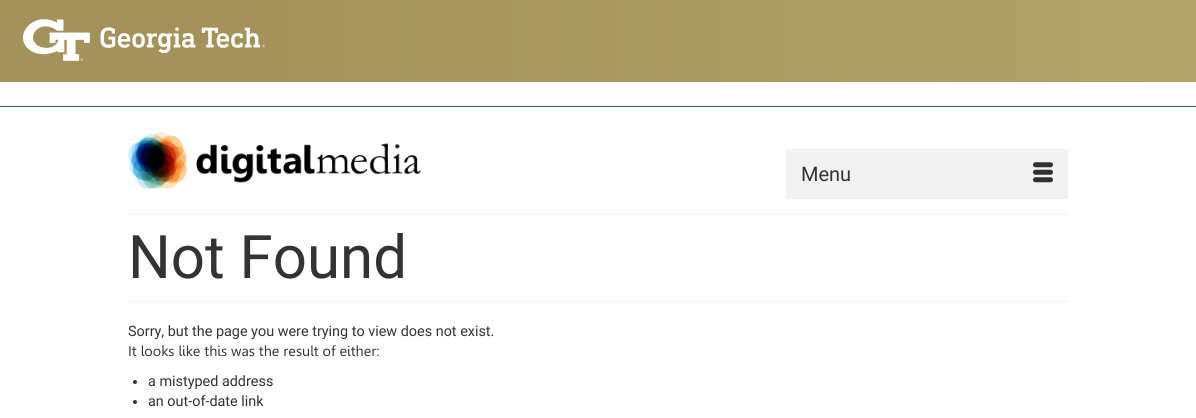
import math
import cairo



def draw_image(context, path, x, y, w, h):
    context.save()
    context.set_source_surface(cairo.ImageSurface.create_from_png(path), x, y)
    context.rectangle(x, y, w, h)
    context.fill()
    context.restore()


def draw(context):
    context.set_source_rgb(1, 1, 1)
    context.paint()
    context.set_source_rgb(164 / 255, 146 / 255, 90 / 255)
    context.rectangle(0, 0, 265, 82)
    context.fill()
    context.set_source_rgb(179 / 255, 163 / 255, 105 / 255)
    context.rectangle(1173, 0, 23, 82)
    context.fill()
    draw_image(context, "images/1.png", 23, 19, 242, 42)
    gradient = cairo.LinearGradient(265, 41, 1173, 41)
    gradient.add_color_stop_rgba(0, 164 / 255, 146 / 255, 90 / 255, 1)
    gradient.add_color_stop_rgba(1, 179 / 255, 163 / 255, 105 / 255, 1)
    context.set_source(gradient)
    context.rectangle(265, 0, 908, 82)
    context.fill()
    context.set_source_rgb(45 / 255, 92 / 255, 136 / 255)
    context.rectangle(0, 106, 1196, 1)
    context.fill()
    draw_image(context, "images/2.png", 128, 132, 293, 57)
    context.set_source_rgb(242 / 255, 242 / 255, 242 / 255)
    context.rectangle(786, 149, 282, 50)
    context.fill()
    draw_image(context, "images/3.png", 1033, 162, 20, 21)
    context.rectangle(128, 214, 940, 1)
    context.fill()
    context.rectangle(128, 301, 940, 1)
    context.fill()
    context.set_source_rgb(51 / 255, 51 / 255, 51 / 255)
    context.arc(135, 382, 2, 0, 2 * math.pi)
    context.fill()
    context.arc(135, 402, 2, 0, 2 * math.pi)
    context.fill()
    context.select_font_face("Roboto")
    context.set_font_size(20)
    context.move_to(801, 181)
    context.show_text("Menu")
    context.set_font_size(60)
    context.move_to(128, 278)
    context.show_text("Not Found")
    context.set_font_size(14.4)
    context.move_to(128, 336)
    context.show_text("Sorry, but the page you were trying to view does not exist.")
    context.select_font_face("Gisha")
    context.move_to(128, 356)
    context.show_text("It looks like this was the result of either:")
    context.select_font_face("Roboto")
    context.move_to(148, 386)
    context.show_text("a mistyped address")
    context.move_to(148, 406)
    context.show_text("an out-of-date link")


surface = cairo.ImageSurface(cairo.Format.RGB24, 1196, 418)
context = cairo.Context(surface)
options = cairo.FontOptions()
options.set_hint_metrics(cairo.HintMetrics.OFF)
options.set_hint_style(cairo.HintStyle.NONE)
context.set_font_options(options)
context.set_miter_limit(4)
draw(context)
surface.write_to_png("out.png")
